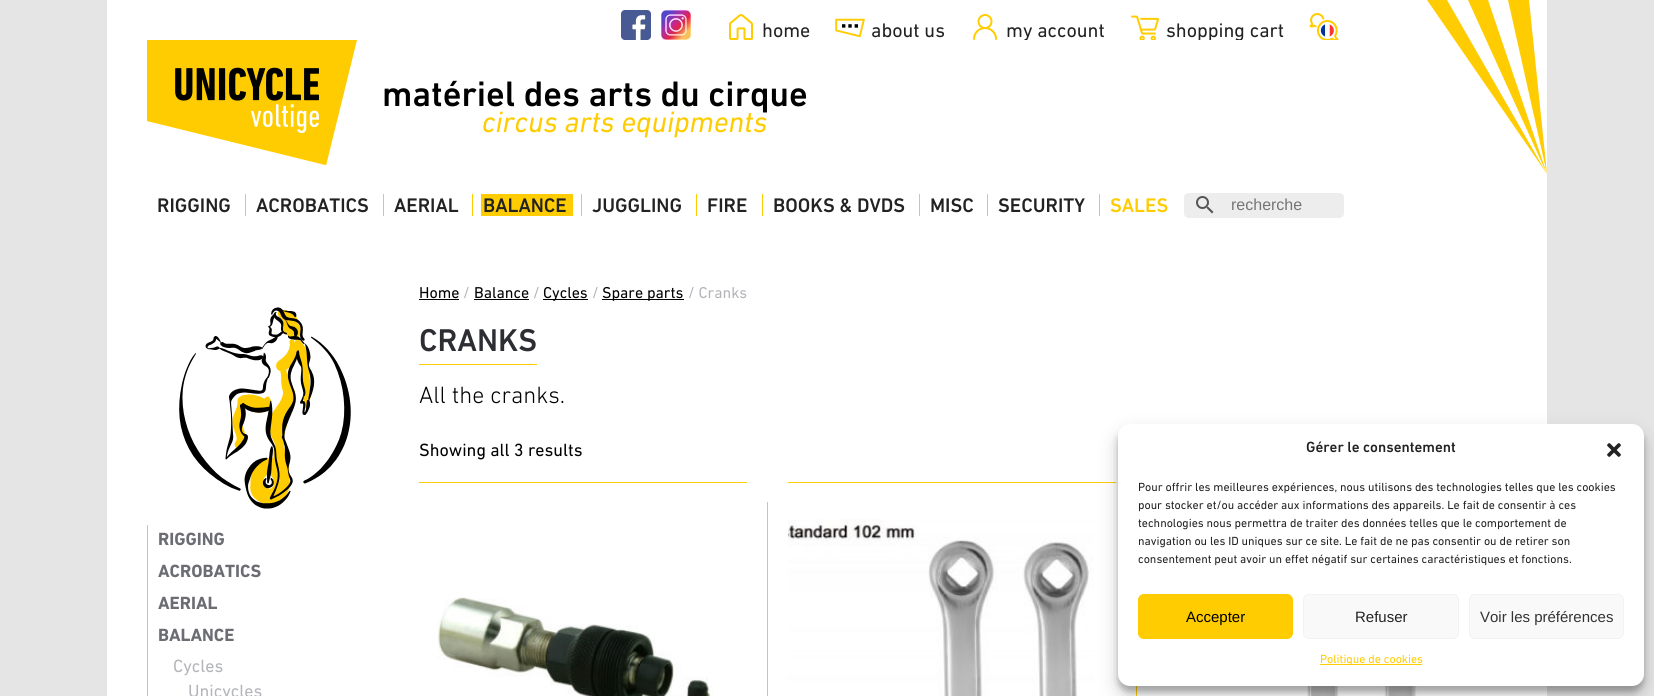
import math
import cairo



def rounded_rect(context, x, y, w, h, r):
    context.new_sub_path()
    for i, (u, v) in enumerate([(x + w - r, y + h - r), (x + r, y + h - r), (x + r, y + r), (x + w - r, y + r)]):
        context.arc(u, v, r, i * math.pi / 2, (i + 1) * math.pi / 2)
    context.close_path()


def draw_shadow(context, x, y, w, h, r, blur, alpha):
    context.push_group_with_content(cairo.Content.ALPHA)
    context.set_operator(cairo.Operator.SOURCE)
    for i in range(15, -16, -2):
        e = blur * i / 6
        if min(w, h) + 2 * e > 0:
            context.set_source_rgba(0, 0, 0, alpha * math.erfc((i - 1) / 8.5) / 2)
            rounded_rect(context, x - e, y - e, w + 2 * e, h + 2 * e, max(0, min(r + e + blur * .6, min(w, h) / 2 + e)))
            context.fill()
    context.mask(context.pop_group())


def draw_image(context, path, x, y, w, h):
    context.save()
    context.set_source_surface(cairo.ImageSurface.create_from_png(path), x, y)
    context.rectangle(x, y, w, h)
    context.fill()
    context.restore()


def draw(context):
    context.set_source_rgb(229 / 255, 229 / 255, 229 / 255)
    context.paint()
    context.set_source_rgb(1, 1, 1)
    context.rectangle(107, 0, 1440, 696)
    context.fill()
    draw_image(context, "images/1.png", 621, 10, 30, 30)
    draw_image(context, "images/2.png", 661, 10, 30, 30)
    draw_image(context, "images/3.png", 729, 14, 24, 26)
    draw_image(context, "images/4.png", 835, 18, 30, 20)
    draw_image(context, "images/5.png", 973, 14, 24, 26)
    draw_image(context, "images/6.png", 1131, 15, 28, 25)
    draw_image(context, "images/7.png", 1309, 13, 30, 27)
    draw_image(context, "images/8.png", 147, 40, 210, 125)
    context.set_source_rgb(1, 204 / 255, 1 / 255)
    context.rectangle(245, 194, 1, 22)
    context.fill()
    context.rectangle(383, 194, 1, 22)
    context.fill()
    context.rectangle(472, 194, 1, 22)
    context.fill()
    context.rectangle(481, 194, 92, 22)
    context.fill()
    context.rectangle(581, 194, 1, 22)
    context.fill()
    context.rectangle(696, 194, 1, 22)
    context.fill()
    context.rectangle(762, 194, 1, 22)
    context.fill()
    context.rectangle(919, 194, 1, 22)
    context.fill()
    context.rectangle(987, 194, 1, 22)
    context.fill()
    context.rectangle(1099, 194, 1, 22)
    context.fill()
    context.set_source_rgb(237 / 255, 237 / 255, 237 / 255)
    context.new_path()
    context.move_to(1189, 193)
    context.line_to(1226, 193)
    context.line_to(1226, 218)
    context.line_to(1189, 218)
    context.curve_to(1186, 218, 1184, 216, 1184, 213)
    context.line_to(1184, 198)
    context.curve_to(1184, 195, 1186, 193, 1189, 193)
    context.close_path()
    context.fill()
    draw_image(context, "images/9.png", 1196, 196, 18, 18)
    context.new_path()
    context.move_to(1225, 193)
    context.line_to(1339, 193)
    context.curve_to(1342, 193, 1344, 195, 1344, 198)
    context.line_to(1344, 213)
    context.curve_to(1344, 216, 1342, 218, 1339, 218)
    context.line_to(1225, 218)
    context.close_path()
    context.fill()
    context.set_source_rgb(0, 0, 0)
    context.rectangle(419, 299, 40, 1)
    context.fill()
    context.rectangle(474, 299, 55, 1)
    context.fill()
    context.rectangle(543, 299, 45, 1)
    context.fill()
    context.rectangle(602, 299, 82, 1)
    context.fill()
    context.set_source_rgb(1, 204 / 255, 1 / 255)
    context.rectangle(419, 364, 118, 1)
    context.fill()
    context.rectangle(767, 502, 1, 194)
    context.fill()
    context.rectangle(419, 482, 328, 1)
    context.fill()
    draw_image(context, "images/10.png", 437, 597, 276, 99)
    context.rectangle(1136, 686, 1, 10)
    context.fill()
    context.rectangle(788, 482, 328, 1)
    context.fill()
    draw_image(context, "images/11.png", 788, 519, 306, 177)
    draw_image(context, "images/12.png", 1157, 686, 263, 10)
    draw_image(context, "images/13.png", 179, 307, 172, 202)
    context.new_path()
    context.move_to(1427, 0)
    context.line_to(1547, 174)
    context.line_to(1447, 0)
    context.close_path()
    context.fill()
    context.new_path()
    context.move_to(1468, 0)
    context.line_to(1547, 174)
    context.line_to(1488, 0)
    context.close_path()
    context.fill()
    context.new_path()
    context.move_to(1547, 174)
    context.line_to(1529, 0)
    context.line_to(1508, 0)
    context.close_path()
    context.fill()
    context.rectangle(147, 525, 1, 171)
    context.fill()
    context.set_source_rgb(0, 0, 0)
    draw_shadow(context, 1118, 430, 526, 262, 12, 3, 0.23)
    draw_shadow(context, 1118, 434, 526, 262, 12, 10, 0.19)
    context.set_source_rgb(1, 1, 1)
    rounded_rect(context, 1118, 424, 526, 262, 12)
    context.fill()
    draw_image(context, "images/14.png", 1607, 443, 14, 14)
    context.set_source_rgb(1, 204 / 255, 1 / 255)
    rounded_rect(context, 1138.5, 594.5, 154, 44, 5.5)
    context.fill_preserve()
    context.set_line_width(1)
    context.stroke()
    context.set_source_rgb(249 / 255, 249 / 255, 249 / 255)
    rounded_rect(context, 1303.5, 594.5, 155, 44, 5.5)
    context.fill_preserve()
    context.set_source_rgb(242 / 255, 242 / 255, 242 / 255)
    context.stroke()
    context.set_source_rgb(249 / 255, 249 / 255, 249 / 255)
    rounded_rect(context, 1469.5, 594.5, 154, 44, 5.5)
    context.fill_preserve()
    context.set_source_rgb(242 / 255, 242 / 255, 242 / 255)
    context.stroke()
    context.set_source_rgb(1, 204 / 255, 1 / 255)
    context.rectangle(1320, 664, 102, 1)
    context.fill()
    context.select_font_face("DIN Next")
    context.set_font_size(20)
    context.set_source_rgb(34 / 255, 34 / 255, 34 / 255)
    context.move_to(762, 37)
    context.show_text("home")
    context.move_to(871, 37)
    context.show_text("about us")
    context.move_to(1006, 37)
    context.show_text("my account")
    context.move_to(1166, 37)
    context.show_text("shopping cart")
    context.set_source_rgb(1, 1, 1)
    context.rectangle(1024, 40, 218, 1)
    context.fill()
    context.select_font_face("DIN Next Medium")
    context.set_font_size(36)
    context.set_source_rgb(0, 0, 0)
    context.move_to(382, 106)
    context.show_text("matériel des arts du cirque")
    context.select_font_face("DIN Next", cairo.FontSlant.ITALIC)
    context.set_font_size(30)
    context.set_source_rgb(1, 204 / 255, 1 / 255)
    context.move_to(482, 132)
    context.show_text("circus arts equipments")
    context.select_font_face("DIN Next Medium")
    context.set_font_size(20)
    context.set_source_rgb(34 / 255, 34 / 255, 34 / 255)
    context.move_to(157, 212)
    context.show_text("RIGGING")
    context.move_to(256, 212)
    context.show_text("ACROBATICS")
    context.move_to(394, 212)
    context.show_text("AERIAL")
    context.move_to(483, 212)
    context.show_text("BALANCE")
    context.move_to(592, 212)
    context.show_text("JUGGLING")
    context.move_to(707, 212)
    context.show_text("FIRE")
    context.move_to(773, 212)
    context.show_text("BOOKS & DVDS")
    context.move_to(930, 212)
    context.show_text("MISC")
    context.move_to(998, 212)
    context.show_text("SECURITY")
    context.set_source_rgb(1, 204 / 255, 1 / 255)
    context.move_to(1110, 212)
    context.show_text("SALES")
    context.select_font_face("Liberation Sans")
    context.set_font_size(16)
    context.set_source_rgb(117 / 255, 117 / 255, 117 / 255)
    context.move_to(1231, 210)
    context.show_text("recherche")
    context.select_font_face("DIN Next")
    context.set_source_rgb(0, 0, 0)
    context.move_to(419, 298)
    context.show_text("Home")
    context.set_source_rgb(180 / 255, 181 / 255, 186 / 255)
    context.move_to(463, 298)
    context.show_text("/")
    context.set_source_rgb(0, 0, 0)
    context.move_to(474, 298)
    context.show_text("Balance")
    context.set_source_rgb(180 / 255, 181 / 255, 186 / 255)
    context.move_to(533, 298)
    context.show_text("/")
    context.set_source_rgb(0, 0, 0)
    context.move_to(543, 298)
    context.show_text("Cycles")
    context.set_source_rgb(180 / 255, 181 / 255, 186 / 255)
    context.move_to(592, 298)
    context.show_text("/")
    context.set_source_rgb(0, 0, 0)
    context.move_to(602, 298)
    context.show_text("Spare parts")
    context.set_source_rgb(180 / 255, 181 / 255, 186 / 255)
    context.move_to(688, 298)
    context.show_text("/ Cranks")
    context.select_font_face("DIN Next Medium")
    context.set_font_size(32)
    context.set_source_rgb(45 / 255, 46 / 255, 51 / 255)
    context.move_to(419, 351)
    context.show_text("CRANKS")
    context.select_font_face("DIN Next Light")
    context.set_font_size(24)
    context.set_source_rgb(0, 0, 0)
    context.move_to(419, 403)
    context.show_text("All the cranks.")
    context.select_font_face("DIN Next")
    context.set_font_size(18)
    context.move_to(419, 456)
    context.show_text("Showing all 3 results")
    context.select_font_face("DIN Next", cairo.FontSlant.NORMAL, cairo.FontWeight.BOLD)
    context.set_source_rgb(108 / 255, 109 / 255, 116 / 255)
    context.move_to(158, 545)
    context.show_text("RIGGING")
    context.move_to(158, 577)
    context.show_text("ACROBATICS")
    context.move_to(158, 609)
    context.show_text("AERIAL")
    context.move_to(158, 641)
    context.show_text("BALANCE")
    context.select_font_face("DIN Next")
    context.set_source_rgb(180 / 255, 181 / 255, 186 / 255)
    context.move_to(173, 672)
    context.show_text("Cycles")
    context.move_to(188, 697)
    context.show_text("Unicycles")
    context.select_font_face("DIN Next Medium")
    context.set_font_size(15)
    context.set_source_rgb(34 / 255, 34 / 255, 34 / 255)
    context.move_to(1306, 452)
    context.show_text("Gérer le consentement")
    context.select_font_face("DIN Next")
    context.set_font_size(12)
    context.move_to(1138, 491)
    context.show_text("Pour offrir les meilleures expériences, nous utilisons des technologies telles que les cookies")
    context.move_to(1138, 509)
    context.show_text("pour stocker et/ou accéder aux informations des appareils. Le fait de consentir à ces")
    context.move_to(1138, 527)
    context.show_text("technologies nous permettra de traiter des données telles que le comportement de")
    context.move_to(1138, 545)
    context.show_text("navigation ou les ID uniques sur ce site. Le fait de ne pas consentir ou de retirer son")
    context.move_to(1138, 563)
    context.show_text("consentement peut avoir un effet négatif sur certaines caractéristiques et fonctions.")
    context.select_font_face("Liberation Sans")
    context.set_font_size(15)
    context.set_source_rgb(0, 0, 0)
    context.move_to(1186, 622)
    context.show_text("Accepter")
    context.set_source_rgb(34 / 255, 34 / 255, 34 / 255)
    context.move_to(1355, 622)
    context.show_text("Refuser")
    context.set_source_rgb(51 / 255, 51 / 255, 51 / 255)
    context.move_to(1480, 622)
    context.show_text("Voir les préférences")
    context.select_font_face("DIN Next")
    context.set_font_size(12)
    context.set_source_rgb(1, 204 / 255, 1 / 255)
    context.move_to(1320, 663)
    context.show_text("Politique de cookies")


surface = cairo.ImageSurface(cairo.Format.RGB24, 1654, 696)
context = cairo.Context(surface)
options = cairo.FontOptions()
options.set_hint_metrics(cairo.HintMetrics.OFF)
options.set_hint_style(cairo.HintStyle.NONE)
context.set_font_options(options)
context.set_miter_limit(4)
draw(context)
surface.write_to_png("out.png")
